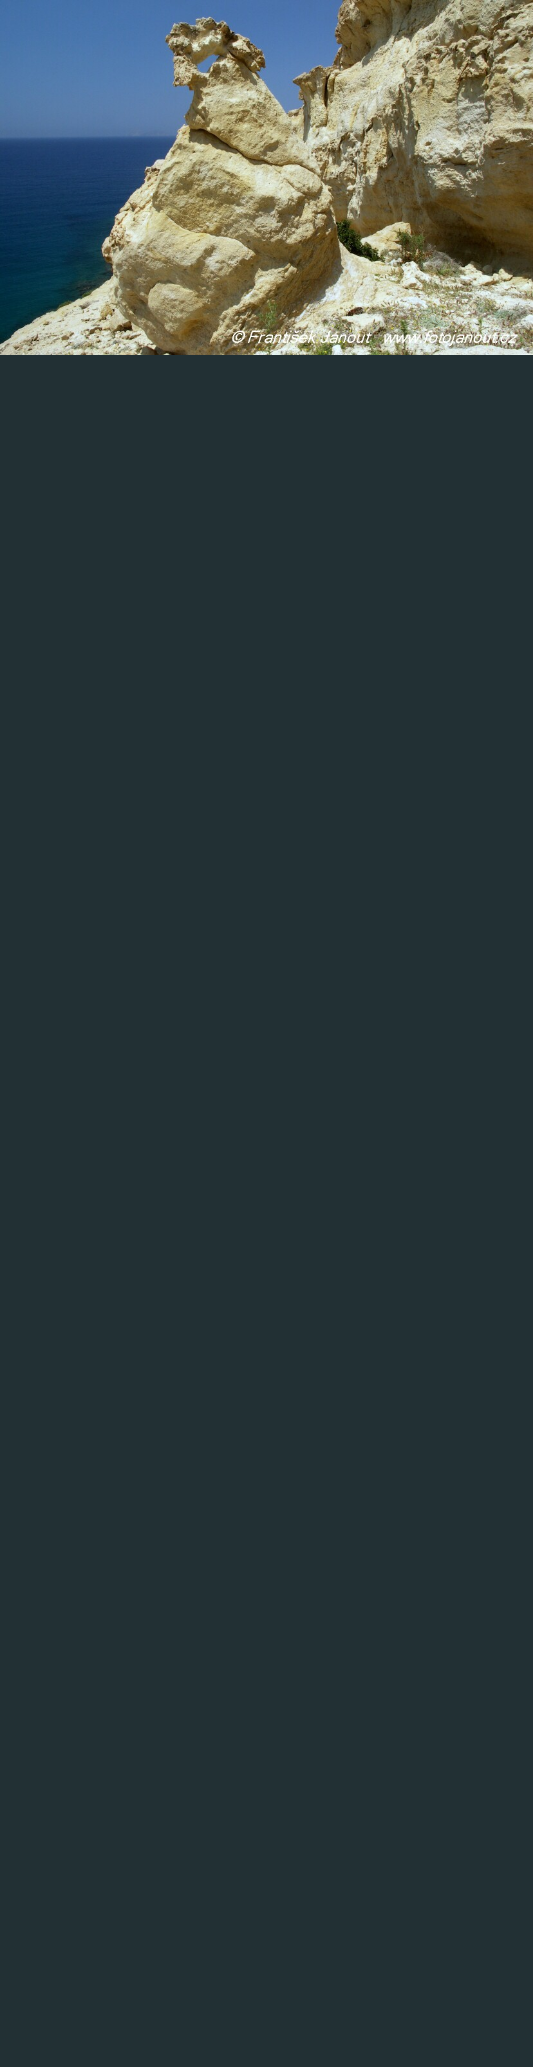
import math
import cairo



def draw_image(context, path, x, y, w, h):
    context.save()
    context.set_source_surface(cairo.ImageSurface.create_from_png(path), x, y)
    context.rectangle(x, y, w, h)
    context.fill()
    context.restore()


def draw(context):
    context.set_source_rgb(34 / 255, 48 / 255, 52 / 255)
    context.paint()
    draw_image(context, "images/1.png", 0, 0, 533, 355)


surface = cairo.ImageSurface(cairo.Format.RGB24, 533, 2067)
context = cairo.Context(surface)
options = cairo.FontOptions()
options.set_hint_metrics(cairo.HintMetrics.OFF)
options.set_hint_style(cairo.HintStyle.NONE)
context.set_font_options(options)
context.set_miter_limit(4)
draw(context)
surface.write_to_png("out.png")
